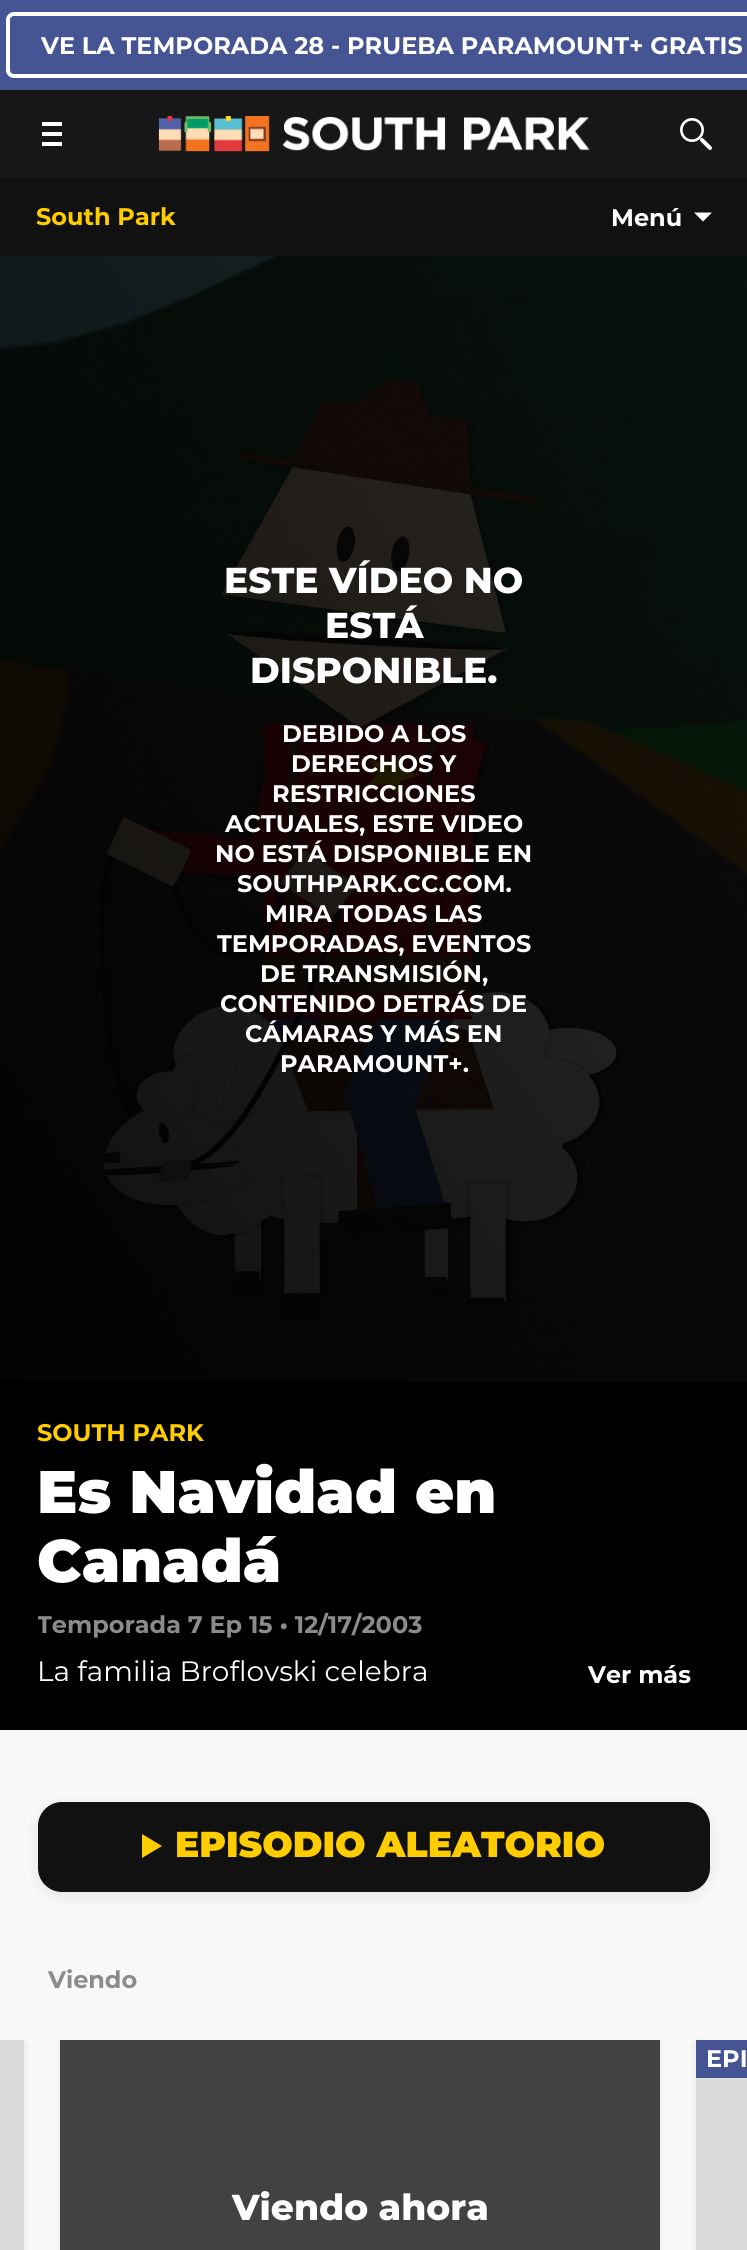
import math
import cairo



def rounded_rect(context, x, y, w, h, r):
    context.new_sub_path()
    for i, (u, v) in enumerate([(x + w - r, y + h - r), (x + r, y + h - r), (x + r, y + r), (x + w - r, y + r)]):
        context.arc(u, v, r, i * math.pi / 2, (i + 1) * math.pi / 2)
    context.close_path()


def draw_shadow(context, x, y, w, h, r, blur, alpha):
    context.push_group_with_content(cairo.Content.ALPHA)
    context.set_operator(cairo.Operator.SOURCE)
    for i in range(15, -16, -2):
        e = blur * i / 6
        if min(w, h) + 2 * e > 0:
            context.set_source_rgba(0, 0, 0, alpha * math.erfc((i - 1) / 8.5) / 2)
            rounded_rect(context, x - e, y - e, w + 2 * e, h + 2 * e, max(0, min(r + e + blur * .6, min(w, h) / 2 + e)))
            context.fill()
    context.mask(context.pop_group())


def draw_image(context, path, x, y, w, h):
    context.save()
    context.set_source_surface(cairo.ImageSurface.create_from_png(path), x, y)
    context.rectangle(x, y, w, h)
    context.fill()
    context.restore()


def draw(context):
    context.set_source_rgb(248 / 255, 248 / 255, 248 / 255)
    context.paint()
    context.set_source_rgb(69 / 255, 84 / 255, 146 / 255)
    context.rectangle(0, 0, 747, 90)
    context.fill()
    rounded_rect(context, 8, 14, 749, 62, 6)
    context.set_source_rgb(1, 1, 1)
    context.set_line_width(4)
    context.stroke()
    context.set_source_rgb(23 / 255, 23 / 255, 23 / 255)
    context.rectangle(0, 90, 747, 88)
    context.fill()
    draw_image(context, "images/1.png", 42, 122, 20, 24)
    draw_image(context, "images/2.png", 158, 116, 432, 36)
    draw_image(context, "images/3.png", 680, 118, 32, 32)
    context.set_source_rgb(17 / 255, 17 / 255, 17 / 255)
    context.rectangle(0, 178, 747, 78)
    context.fill()
    context.set_source_rgb(1, 1, 1)
    context.new_path()
    context.move_to(712, 212.5)
    context.line_to(703, 221.5)
    context.line_to(694, 212.5)
    context.close_path()
    context.fill()
    context.set_source_rgb(0, 0, 0)
    context.rectangle(0, 1382, 747, 348)
    context.fill()
    draw_image(context, "images/4.png", 0, 256, 747, 1126)
    context.set_source_rgb(0, 0, 0)
    draw_shadow(context, 38, 1806, 672, 90, 24, 8, 0.08)
    context.set_source_rgb(17 / 255, 17 / 255, 17 / 255)
    rounded_rect(context, 38, 1802, 672, 90, 24)
    context.fill()
    context.set_source_rgb(1, 204 / 255, 0)
    context.new_path()
    context.move_to(142, 1834)
    context.line_to(162, 1846)
    context.line_to(142, 1858)
    context.close_path()
    context.fill()
    context.set_source_rgb(0, 0, 0)
    draw_shadow(context, -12, 2044, 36, 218, 0, 4, 0.08)
    context.set_source_rgb(219 / 255, 219 / 255, 219 / 255)
    context.rectangle(0, 2040, 24, 210)
    context.fill()
    context.set_source_rgb(0, 0, 0)
    draw_shadow(context, 696, 2044, 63, 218, 0, 4, 0.08)
    context.set_source_rgb(69 / 255, 84 / 255, 146 / 255)
    context.rectangle(696, 2040, 51, 38)
    context.fill()
    context.set_source_rgb(219 / 255, 219 / 255, 219 / 255)
    context.rectangle(696, 2078, 51, 172)
    context.fill()
    context.set_source_rgb(0, 0, 0)
    draw_shadow(context, 60, 2044, 600, 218, 0, 4, 0.08)
    context.set_source_rgb(66 / 255, 66 / 255, 66 / 255)
    context.rectangle(60, 2040, 600, 210)
    context.fill()
    context.select_font_face("Montserrat", cairo.FontSlant.NORMAL, cairo.FontWeight.BOLD)
    context.set_font_size(24)
    context.set_source_rgb(1, 1, 1)
    context.move_to(41, 54)
    context.show_text("VE LA TEMPORADA 28 - PRUEBA PARAMOUNT+ GRATIS")
    context.set_source_rgb(1, 204 / 255, 0)
    context.move_to(36, 225)
    context.show_text("South Park")
    context.set_source_rgb(1, 1, 1)
    context.move_to(611, 226)
    context.show_text("Menú")
    context.select_font_face("Montserrat ExtraBold")
    context.set_font_size(36)
    context.move_to(224, 593)
    context.show_text("ESTE VÍDEO NO")
    context.move_to(325, 638)
    context.show_text("ESTÁ")
    context.move_to(250, 683)
    context.show_text("DISPONIBLE.")
    context.select_font_face("Montserrat", cairo.FontSlant.NORMAL, cairo.FontWeight.BOLD)
    context.set_font_size(24)
    context.move_to(282, 742)
    context.show_text("DEBIDO A LOS")
    context.move_to(291, 772)
    context.show_text("DERECHOS Y")
    context.move_to(272, 802)
    context.show_text("RESTRICCIONES")
    context.move_to(225, 832)
    context.show_text("ACTUALES, ESTE VIDEO")
    context.move_to(215, 862)
    context.show_text("NO ESTÁ DISPONIBLE EN")
    context.move_to(237, 892)
    context.show_text("SOUTHPARK.CC.COM.")
    context.move_to(265, 922)
    context.show_text("MIRA TODAS LAS")
    context.move_to(217, 952)
    context.show_text("TEMPORADAS, EVENTOS")
    context.move_to(260, 982)
    context.show_text("DE TRANSMISIÓN,")
    context.move_to(220, 1012)
    context.show_text("CONTENIDO DETRÁS DE")
    context.move_to(245, 1042)
    context.show_text("CÁMARAS Y MÁS EN")
    context.move_to(280, 1072)
    context.show_text("PARAMOUNT+.")
    context.set_source_rgb(1, 204 / 255, 0)
    context.move_to(37, 1441)
    context.show_text("SOUTH PARK")
    context.select_font_face("Montserrat Black")
    context.set_font_size(60)
    context.set_source_rgb(1, 1, 1)
    context.move_to(37, 1513)
    context.show_text("Es Navidad en")
    context.move_to(37, 1582)
    context.show_text("Canadá")
    context.save()
    context.rectangle(38, 1382, 672, 348)
    context.clip()
    context.select_font_face("Montserrat", cairo.FontSlant.NORMAL, cairo.FontWeight.BOLD)
    context.set_font_size(24)
    context.set_source_rgb(139 / 255, 139 / 255, 139 / 255)
    context.move_to(37, 1633)
    context.show_text("Temporada 7 Ep 15 • 12/17/2003")
    context.restore()
    context.select_font_face("Montserrat")
    context.set_font_size(28)
    context.move_to(37, 1681)
    context.show_text("La familia Broflovski celebra")
    context.select_font_face("Montserrat", cairo.FontSlant.NORMAL, cairo.FontWeight.BOLD)
    context.set_font_size(24)
    context.move_to(588, 1683)
    context.show_text("Ver más")
    context.select_font_face("Montserrat Black")
    context.set_font_size(36)
    context.set_source_rgb(1, 204 / 255, 0)
    context.move_to(175, 1857)
    context.show_text("EPISODIO ALEATORIO")
    context.select_font_face("Montserrat", cairo.FontSlant.NORMAL, cairo.FontWeight.BOLD)
    context.set_font_size(24)
    context.set_source_rgb(139 / 255, 139 / 255, 139 / 255)
    context.move_to(48, 1988)
    context.show_text("Viendo")
    context.set_source_rgb(1, 1, 1)
    context.move_to(706, 2067)
    context.show_text("EPI")
    context.select_font_face("Montserrat ExtraBold")
    context.set_font_size(36)
    context.move_to(232, 2220)
    context.show_text("Viendo ahora")


surface = cairo.ImageSurface(cairo.Format.RGB24, 747, 2250)
context = cairo.Context(surface)
options = cairo.FontOptions()
options.set_hint_metrics(cairo.HintMetrics.OFF)
options.set_hint_style(cairo.HintStyle.NONE)
context.set_font_options(options)
context.set_miter_limit(4)
draw(context)
surface.write_to_png("out.png")
